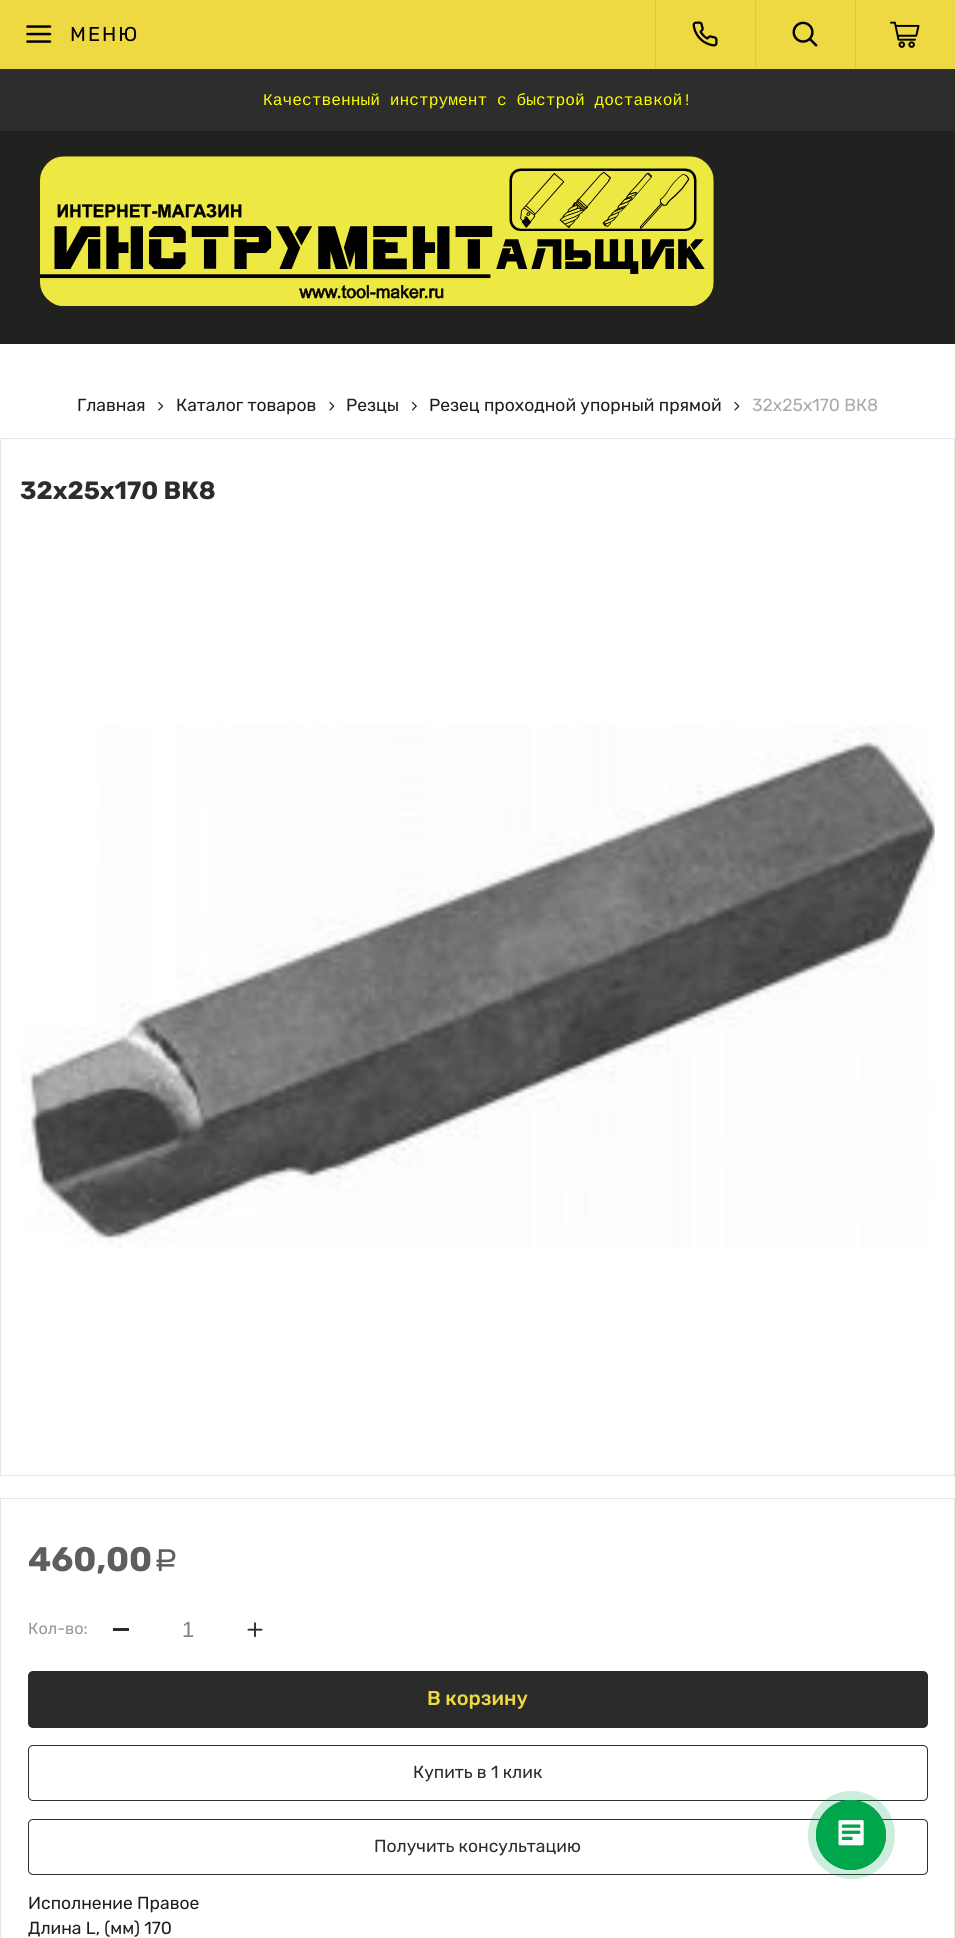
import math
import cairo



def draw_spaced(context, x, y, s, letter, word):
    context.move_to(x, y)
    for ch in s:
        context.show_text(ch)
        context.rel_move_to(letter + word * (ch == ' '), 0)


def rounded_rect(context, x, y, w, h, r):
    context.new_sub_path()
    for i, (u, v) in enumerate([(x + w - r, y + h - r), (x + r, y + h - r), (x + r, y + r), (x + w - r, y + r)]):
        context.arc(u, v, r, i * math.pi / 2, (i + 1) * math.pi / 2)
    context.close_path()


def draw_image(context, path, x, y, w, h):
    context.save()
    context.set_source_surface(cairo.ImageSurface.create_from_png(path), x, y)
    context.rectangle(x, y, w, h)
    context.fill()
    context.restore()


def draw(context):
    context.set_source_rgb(1, 1, 1)
    context.paint()
    context.set_source_rgb(238 / 255, 217 / 255, 66 / 255)
    context.rectangle(0, 0, 955, 69)
    context.fill()
    draw_image(context, "images/1.png", 26, 25, 26, 18)
    context.set_source_rgb(218 / 255, 199 / 255, 62 / 255)
    context.rectangle(655, 0, 1, 69)
    context.fill()
    draw_image(context, "images/2.png", 692, 21, 26, 26)
    context.rectangle(755, 0, 1, 69)
    context.fill()
    draw_image(context, "images/3.png", 792, 21, 26, 26)
    context.rectangle(855, 0, 1, 69)
    context.fill()
    draw_image(context, "images/4.png", 890, 21, 30, 27)
    context.set_source_rgb(45 / 255, 45 / 255, 43 / 255)
    context.rectangle(0, 69, 955, 62)
    context.fill()
    context.set_source_rgb(33 / 255, 33 / 255, 31 / 255)
    context.rectangle(0, 131, 955, 213)
    context.fill()
    draw_image(context, "images/5.png", 40, 156, 674, 150)
    draw_image(context, "images/6.png", 158, 401, 6, 10)
    draw_image(context, "images/7.png", 329, 401, 6, 10)
    draw_image(context, "images/8.png", 411, 401, 6, 10)
    draw_image(context, "images/7.png", 734, 401, 6, 10)
    context.rectangle(0.5, 438.5, 954, 1037)
    context.set_source_rgb(228 / 255, 229 / 255, 230 / 255)
    context.set_line_width(1)
    context.stroke()
    draw_image(context, "images/9.png", 21, 725, 914, 523)
    context.rectangle(0.5, 1498.5, 954, 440)
    context.stroke()
    context.set_source_rgb(43 / 255, 43 / 255, 43 / 255)
    context.rectangle(113, 1628, 16, 3)
    context.fill()
    draw_image(context, "images/10.png", 247, 1622, 16, 16)
    rounded_rect(context, 28, 1671, 900, 57, 5)
    context.fill()
    rounded_rect(context, 28.5, 1745.5, 899, 55, 4.5)
    context.set_source_rgb(47 / 255, 47 / 255, 47 / 255)
    context.stroke()
    rounded_rect(context, 28.5, 1819.5, 899, 55, 4.5)
    context.stroke()
    context.set_source_rgba(0, 166 / 255, 76 / 255, 0.2)
    rounded_rect(context, 808, 1791, 87, 88, 43.5)
    context.fill()
    context.arc(851, 1835, 34.5, 0, 2 * math.pi)
    context.set_source_rgb(0, 166 / 255, 76 / 255)
    context.stroke()
    context.arc(851, 1835, 35, 0, 2 * math.pi)
    context.fill()
    draw_image(context, "images/11.png", 838, 1820, 26, 26)
    context.select_font_face("Rubik")
    context.set_font_size(20)
    context.set_source_rgb(0, 0, 0)
    draw_spaced(context, 70, 41, "МЕНЮ", 2, 0)
    context.select_font_face("Liberation Mono")
    context.set_font_size(16.25)
    context.set_source_rgb(1, 1, 0)
    context.move_to(263, 105)
    context.show_text("Качественный инструмент с быстрой доставкой!")
    context.select_font_face("Rubik")
    context.set_font_size(17.5)
    context.set_source_rgb(32 / 255, 31 / 255, 31 / 255)
    context.move_to(77, 411)
    context.show_text("Главная")
    context.move_to(176, 411)
    context.show_text("Каталог товаров")
    context.move_to(346, 411)
    context.show_text("Резцы")
    context.move_to(429, 411)
    context.show_text("Резец проходной упорный прямой")
    context.set_source_rgb(170 / 255, 170 / 255, 170 / 255)
    context.move_to(752, 411)
    context.show_text("32х25х170 ВК8")
    context.select_font_face("Rubik", cairo.FontSlant.NORMAL, cairo.FontWeight.BOLD)
    context.set_font_size(25)
    context.set_source_rgb(45 / 255, 43 / 255, 46 / 255)
    context.move_to(20, 499)
    context.show_text("32х25х170 ВК8")
    context.set_font_size(34)
    context.set_source_rgb(94 / 255, 94 / 255, 94 / 255)
    context.move_to(28, 1571)
    context.show_text("460,00")
    context.select_font_face("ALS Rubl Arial")
    context.set_font_size(31)
    context.move_to(154, 1571)
    context.show_text("Р")
    context.select_font_face("Rubik")
    context.set_font_size(16.25)
    context.set_source_rgb(150 / 255, 151 / 255, 156 / 255)
    context.move_to(28, 1634)
    context.show_text("Кол-во:")
    context.select_font_face("Liberation Sans")
    context.set_font_size(22)
    context.set_source_rgb(128 / 255, 128 / 255, 128 / 255)
    context.move_to(182, 1637)
    context.show_text("1")
    context.select_font_face("Rubik Medium")
    context.set_font_size(20)
    context.set_source_rgb(238 / 255, 217 / 255, 66 / 255)
    context.move_to(427, 1705)
    context.show_text("В корзину")
    context.select_font_face("Rubik")
    context.set_font_size(17.5)
    context.set_source_rgb(45 / 255, 43 / 255, 46 / 255)
    context.move_to(413, 1778)
    context.show_text("Купить в 1 клик")
    context.move_to(374, 1852)
    context.show_text("Получить консультацию")
    context.set_source_rgb(32 / 255, 31 / 255, 31 / 255)
    context.move_to(28, 1909)
    context.show_text("Исполнение Правое")
    context.move_to(28, 1934)
    context.show_text("Длина L, (мм) 170")


surface = cairo.ImageSurface(cairo.Format.RGB24, 955, 1938)
context = cairo.Context(surface)
options = cairo.FontOptions()
options.set_hint_metrics(cairo.HintMetrics.OFF)
options.set_hint_style(cairo.HintStyle.NONE)
context.set_font_options(options)
context.set_miter_limit(4)
draw(context)
surface.write_to_png("out.png")
